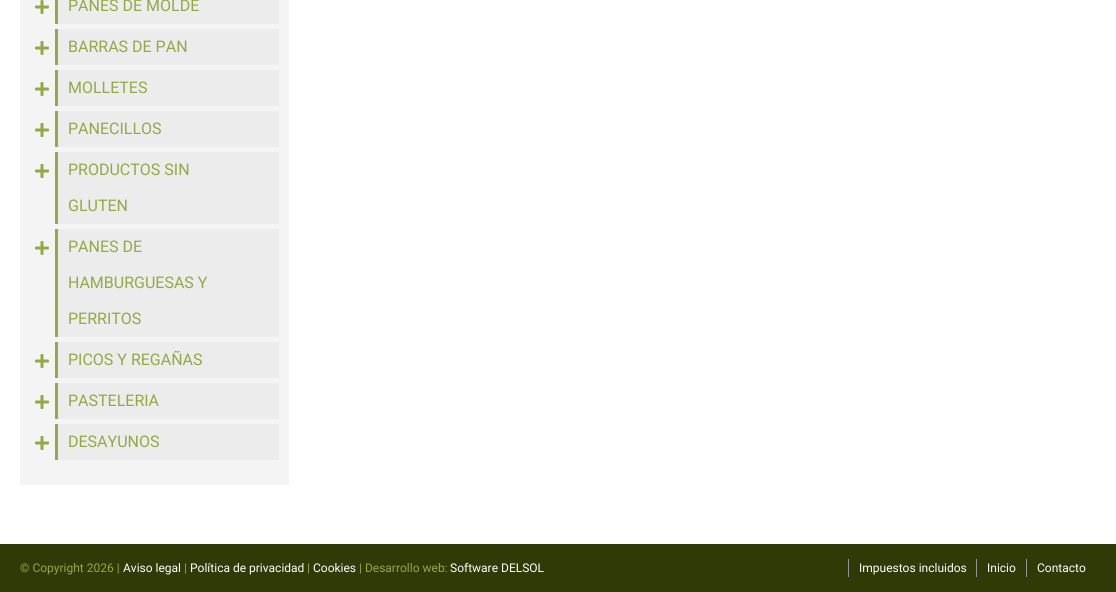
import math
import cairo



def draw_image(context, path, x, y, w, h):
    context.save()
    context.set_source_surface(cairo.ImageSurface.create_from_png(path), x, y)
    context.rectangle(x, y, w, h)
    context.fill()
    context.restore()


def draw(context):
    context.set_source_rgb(1, 1, 1)
    context.paint()
    context.set_source_rgb(244 / 255, 244 / 255, 244 / 255)
    context.rectangle(20, 0, 269, 485)
    context.fill()
    draw_image(context, "images/1.png", 35, 0, 14, 14)
    context.set_source_rgb(236 / 255, 236 / 255, 236 / 255)
    context.rectangle(58, 0, 221, 24)
    context.fill()
    context.set_source_rgb(148 / 255, 168 / 255, 69 / 255)
    context.rectangle(55, 0, 3, 24)
    context.fill()
    draw_image(context, "images/1.png", 35, 41, 14, 14)
    context.set_source_rgb(236 / 255, 236 / 255, 236 / 255)
    context.rectangle(58, 29, 221, 36)
    context.fill()
    context.set_source_rgb(148 / 255, 168 / 255, 69 / 255)
    context.rectangle(55, 29, 3, 36)
    context.fill()
    draw_image(context, "images/1.png", 35, 82, 14, 14)
    context.set_source_rgb(236 / 255, 236 / 255, 236 / 255)
    context.rectangle(58, 70, 221, 36)
    context.fill()
    context.set_source_rgb(148 / 255, 168 / 255, 69 / 255)
    context.rectangle(55, 70, 3, 36)
    context.fill()
    draw_image(context, "images/1.png", 35, 123, 14, 14)
    context.set_source_rgb(236 / 255, 236 / 255, 236 / 255)
    context.rectangle(58, 111, 221, 36)
    context.fill()
    context.set_source_rgb(148 / 255, 168 / 255, 69 / 255)
    context.rectangle(55, 111, 3, 36)
    context.fill()
    draw_image(context, "images/1.png", 35, 164, 14, 14)
    context.set_source_rgb(236 / 255, 236 / 255, 236 / 255)
    context.rectangle(58, 152, 221, 72)
    context.fill()
    context.set_source_rgb(148 / 255, 168 / 255, 69 / 255)
    context.rectangle(55, 152, 3, 72)
    context.fill()
    draw_image(context, "images/1.png", 35, 241, 14, 14)
    context.set_source_rgb(236 / 255, 236 / 255, 236 / 255)
    context.rectangle(58, 229, 221, 108)
    context.fill()
    context.set_source_rgb(148 / 255, 168 / 255, 69 / 255)
    context.rectangle(55, 229, 3, 108)
    context.fill()
    draw_image(context, "images/1.png", 35, 354, 14, 14)
    context.set_source_rgb(236 / 255, 236 / 255, 236 / 255)
    context.rectangle(58, 342, 221, 36)
    context.fill()
    context.set_source_rgb(148 / 255, 168 / 255, 69 / 255)
    context.rectangle(55, 342, 3, 36)
    context.fill()
    draw_image(context, "images/1.png", 35, 395, 14, 14)
    context.set_source_rgb(236 / 255, 236 / 255, 236 / 255)
    context.rectangle(58, 383, 221, 36)
    context.fill()
    context.set_source_rgb(148 / 255, 168 / 255, 69 / 255)
    context.rectangle(55, 383, 3, 36)
    context.fill()
    draw_image(context, "images/1.png", 35, 436, 14, 14)
    context.set_source_rgb(236 / 255, 236 / 255, 236 / 255)
    context.rectangle(58, 424, 221, 36)
    context.fill()
    context.set_source_rgb(148 / 255, 168 / 255, 69 / 255)
    context.rectangle(55, 424, 3, 36)
    context.fill()
    context.set_source_rgb(47 / 255, 58 / 255, 7 / 255)
    context.rectangle(0, 544, 1116, 48)
    context.fill()
    context.set_source_rgb(147 / 255, 150 / 255, 148 / 255)
    context.rectangle(848, 559, 1, 18)
    context.fill()
    context.rectangle(976, 559, 1, 18)
    context.fill()
    context.rectangle(1026, 559, 1, 18)
    context.fill()
    context.select_font_face("Roboto")
    context.set_font_size(16)
    context.set_source_rgb(148 / 255, 168 / 255, 69 / 255)
    context.move_to(68, 11)
    context.show_text("PANES DE MOLDE")
    context.move_to(68, 52)
    context.show_text("BARRAS DE PAN")
    context.move_to(68, 93)
    context.show_text("MOLLETES")
    context.move_to(68, 134)
    context.show_text("PANECILLOS")
    context.move_to(68, 175)
    context.show_text("PRODUCTOS SIN")
    context.move_to(68, 211)
    context.show_text("GLUTEN")
    context.move_to(68, 252)
    context.show_text("PANES DE")
    context.move_to(68, 288)
    context.show_text("HAMBURGUESAS Y")
    context.move_to(68, 324)
    context.show_text("PERRITOS")
    context.move_to(68, 365)
    context.show_text("PICOS Y REGAÑAS")
    context.move_to(68, 406)
    context.show_text("PASTELERIA")
    context.move_to(68, 447)
    context.show_text("DESAYUNOS")
    context.set_font_size(12)
    context.move_to(20, 572)
    context.show_text("© Copyright 2026 |")
    context.set_source_rgb(1, 1, 1)
    context.move_to(123, 572)
    context.show_text("Aviso legal")
    context.set_source_rgb(148 / 255, 168 / 255, 69 / 255)
    context.move_to(184, 572)
    context.show_text("|")
    context.set_source_rgb(1, 1, 1)
    context.move_to(190, 572)
    context.show_text("Política de privacidad")
    context.set_source_rgb(148 / 255, 168 / 255, 69 / 255)
    context.move_to(307, 572)
    context.show_text("|")
    context.set_source_rgb(1, 1, 1)
    context.move_to(313, 572)
    context.show_text("Cookies")
    context.set_source_rgb(148 / 255, 168 / 255, 69 / 255)
    context.move_to(359, 572)
    context.show_text("| Desarrollo web:")
    context.set_source_rgb(1, 1, 1)
    context.move_to(450, 572)
    context.show_text("Software DELSOL")
    context.move_to(859, 572)
    context.show_text("Impuestos incluidos")
    context.move_to(987, 572)
    context.show_text("Inicio")
    context.move_to(1037, 572)
    context.show_text("Contacto")


surface = cairo.ImageSurface(cairo.Format.RGB24, 1116, 592)
context = cairo.Context(surface)
options = cairo.FontOptions()
options.set_hint_metrics(cairo.HintMetrics.OFF)
options.set_hint_style(cairo.HintStyle.NONE)
context.set_font_options(options)
context.set_miter_limit(4)
draw(context)
surface.write_to_png("out.png")
